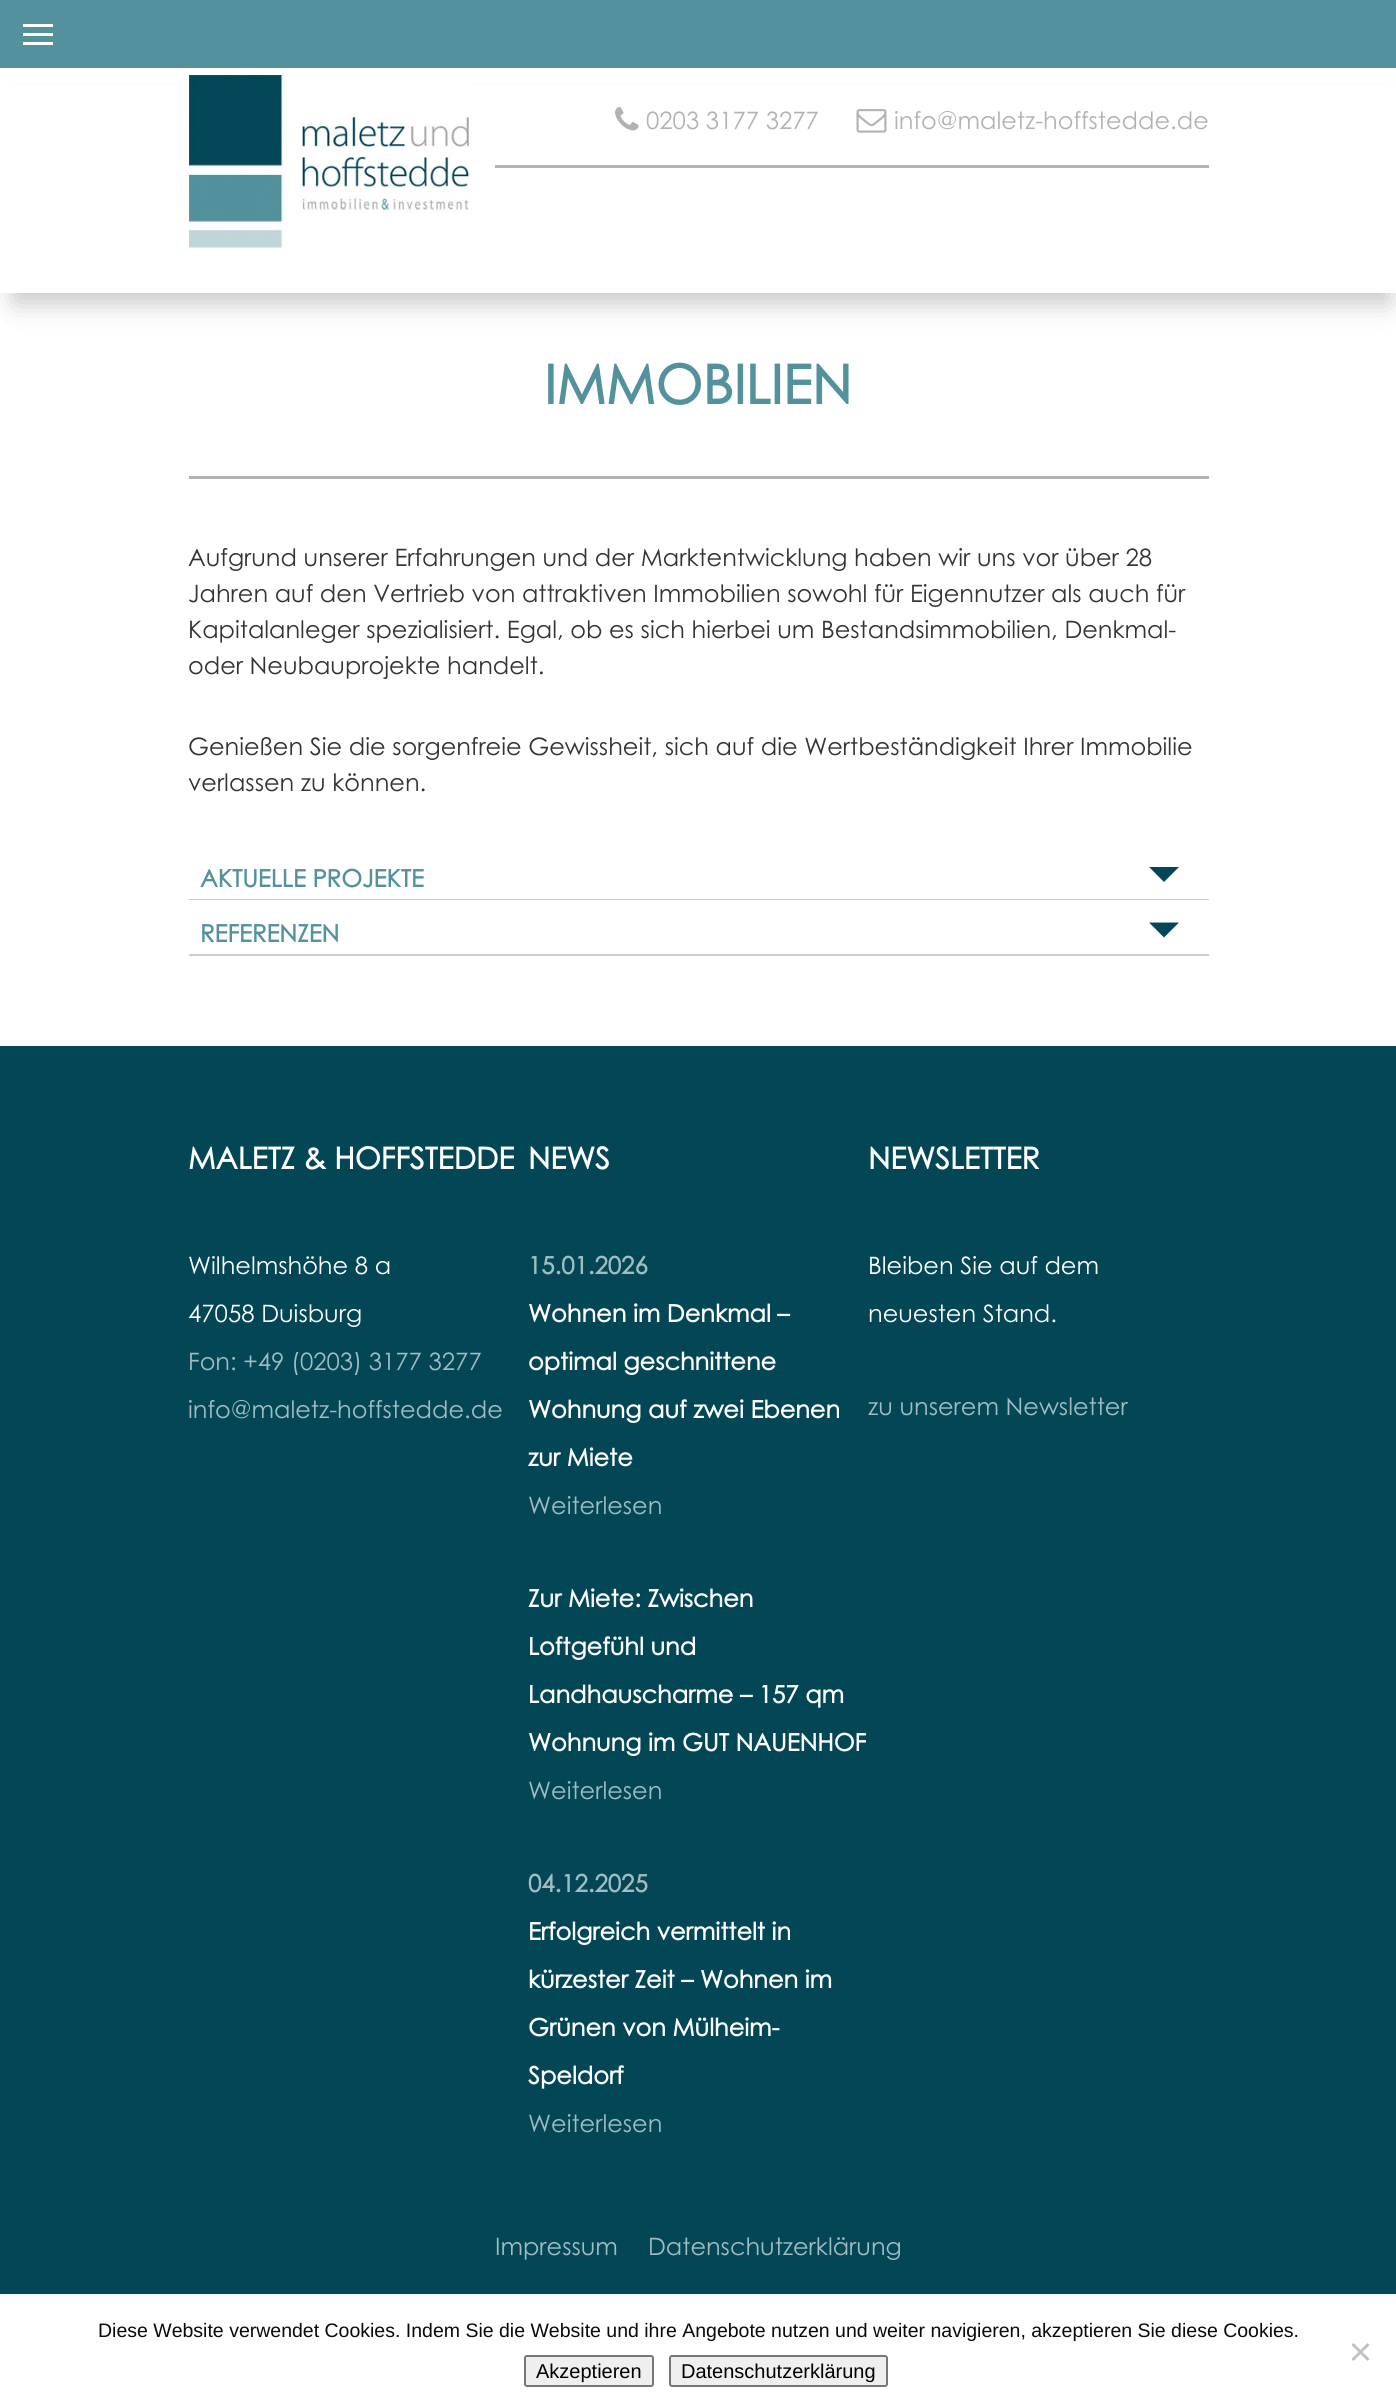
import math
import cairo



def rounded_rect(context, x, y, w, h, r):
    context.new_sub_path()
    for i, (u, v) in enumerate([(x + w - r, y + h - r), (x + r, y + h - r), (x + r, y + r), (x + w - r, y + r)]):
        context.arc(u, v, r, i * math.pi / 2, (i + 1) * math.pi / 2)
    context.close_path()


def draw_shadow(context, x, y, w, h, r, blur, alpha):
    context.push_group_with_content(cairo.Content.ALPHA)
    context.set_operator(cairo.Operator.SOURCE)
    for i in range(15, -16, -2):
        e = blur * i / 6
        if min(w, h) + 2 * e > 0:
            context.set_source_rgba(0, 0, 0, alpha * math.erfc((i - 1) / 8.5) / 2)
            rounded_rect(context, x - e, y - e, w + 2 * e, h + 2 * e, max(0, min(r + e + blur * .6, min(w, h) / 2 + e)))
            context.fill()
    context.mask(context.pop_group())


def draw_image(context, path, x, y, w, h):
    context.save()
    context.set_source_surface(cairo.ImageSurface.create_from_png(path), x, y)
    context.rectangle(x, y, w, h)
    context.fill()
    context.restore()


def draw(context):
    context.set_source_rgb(1, 1, 1)
    context.paint()
    context.set_source_rgb(196 / 255, 196 / 255, 196 / 255)
    draw_shadow(context, 15, 108, 1373, 194, 0, 13.5, 1)
    context.set_source_rgb(1, 1, 1)
    context.rectangle(0, 85, 1396, 208)
    context.fill()
    draw_image(context, "images/1.png", 189, 75, 283, 173)
    context.set_source_rgb(83 / 255, 146 / 255, 156 / 255)
    context.rectangle(0, 0, 1396, 68)
    context.fill()
    context.set_source_rgb(1, 1, 1)
    context.rectangle(23, 24, 30, 3)
    context.fill()
    context.rectangle(23, 33, 30, 3)
    context.fill()
    context.rectangle(23, 42, 30, 3)
    context.fill()
    context.set_source_rgb(178 / 255, 178 / 255, 178 / 255)
    context.rectangle(495, 165, 714, 3)
    context.fill()
    draw_image(context, "images/2.png", 615, 107, 24, 24)
    draw_image(context, "images/3.png", 856, 109, 31, 24)
    context.rectangle(189, 476, 1020, 3)
    context.fill()
    context.set_source_rgb(204 / 255, 204 / 255, 204 / 255)
    context.rectangle(189, 899, 1020, 1)
    context.fill()
    context.set_source_rgb(3 / 255, 71 / 255, 87 / 255)
    context.new_path()
    context.move_to(1149, 867)
    context.line_to(1179, 867)
    context.line_to(1164, 882)
    context.close_path()
    context.fill()
    context.set_source_rgb(204 / 255, 204 / 255, 204 / 255)
    context.rectangle(189, 954, 1020, 2)
    context.fill()
    context.set_source_rgb(3 / 255, 71 / 255, 87 / 255)
    context.new_path()
    context.move_to(1149, 922.5)
    context.line_to(1179, 922.5)
    context.line_to(1164, 937.5)
    context.close_path()
    context.fill()
    context.rectangle(0, 1046, 1396, 1248)
    context.fill()
    context.set_source_rgb(192 / 255, 192 / 255, 192 / 255)
    context.new_path()
    context.move_to(1367.5, 2343)
    context.line_to(1369.5, 2345)
    context.line_to(1353.5, 2361)
    context.line_to(1351.5, 2359)
    context.close_path()
    context.fill()
    context.new_path()
    context.move_to(1351.5, 2345)
    context.line_to(1353.5, 2343)
    context.line_to(1369.5, 2359)
    context.line_to(1367.5, 2361)
    context.close_path()
    context.fill()
    context.set_source_rgb(239 / 255, 239 / 255, 239 / 255)
    rounded_rect(context, 525, 2356, 128, 30, 2)
    context.fill_preserve()
    context.set_source_rgb(118 / 255, 118 / 255, 118 / 255)
    context.stroke()
    context.set_source_rgb(239 / 255, 239 / 255, 239 / 255)
    rounded_rect(context, 670, 2356, 217, 30, 2)
    context.fill_preserve()
    context.set_source_rgb(118 / 255, 118 / 255, 118 / 255)
    context.stroke()
    context.select_font_face("Century Gothic")
    context.set_font_size(24)
    context.set_source_rgb(178 / 255, 178 / 255, 179 / 255)
    context.move_to(646, 129)
    context.show_text("0203 3177 3277")
    context.move_to(894, 129)
    context.show_text("info@maletz-hoffstedde.de")
    context.select_font_face("Century Gothic", cairo.FontSlant.NORMAL, cairo.FontWeight.BOLD)
    context.set_font_size(54)
    context.set_source_rgb(83 / 255, 146 / 255, 156 / 255)
    context.move_to(544, 404)
    context.show_text("IMMOBILIEN")
    context.select_font_face("Century Gothic")
    context.set_font_size(24)
    context.set_source_rgb(51 / 255, 51 / 255, 51 / 255)
    context.move_to(188, 566)
    context.show_text("Aufgrund unserer Erfahrungen und der Marktentwicklung haben wir uns vor über 28")
    context.move_to(188, 602)
    context.show_text("Jahren auf den Vertrieb von attraktiven Immobilien sowohl für Eigennutzer als auch für")
    context.move_to(188, 638)
    context.show_text("Kapitalanleger spezialisiert. Egal, ob es sich hierbei um Bestandsimmobilien, Denkmal-")
    context.move_to(188, 674)
    context.show_text("oder Neubauprojekte handelt.")
    context.move_to(188, 755)
    context.show_text("Genießen Sie die sorgenfreie Gewissheit, sich auf die Wertbeständigkeit Ihrer Immobilie")
    context.move_to(188, 791)
    context.show_text("verlassen zu können.")
    context.select_font_face("Century Gothic", cairo.FontSlant.NORMAL, cairo.FontWeight.BOLD)
    context.set_source_rgb(83 / 255, 146 / 255, 156 / 255)
    context.move_to(200, 887)
    context.show_text("AKTUELLE PROJEKTE")
    context.move_to(200, 942)
    context.show_text("REFERENZEN")
    context.set_font_size(30)
    context.set_source_rgb(1, 1, 1)
    context.move_to(188, 1169)
    context.show_text("MALETZ & HOFFSTEDDE")
    context.select_font_face("Century Gothic")
    context.set_font_size(24)
    context.move_to(188, 1274)
    context.show_text("Wilhelmshöhe 8 a")
    context.move_to(188, 1322)
    context.show_text("47058 Duisburg")
    context.set_source_rgb(160 / 255, 189 / 255, 194 / 255)
    context.move_to(188, 1370)
    context.show_text("Fon: +49 (0203) 3177 3277")
    context.move_to(188, 1418)
    context.show_text("info@maletz-hoffstedde.de")
    context.select_font_face("Century Gothic", cairo.FontSlant.NORMAL, cairo.FontWeight.BOLD)
    context.set_font_size(30)
    context.set_source_rgb(1, 1, 1)
    context.move_to(528, 1169)
    context.show_text("NEWS")
    context.set_font_size(24)
    context.set_source_rgb(160 / 255, 189 / 255, 194 / 255)
    context.move_to(528, 1274)
    context.show_text("15.01.2026")
    context.set_source_rgb(1, 1, 1)
    context.move_to(528, 1322)
    context.show_text("Wohnen im Denkmal –")
    context.move_to(528, 1370)
    context.show_text("optimal geschnittene")
    context.move_to(528, 1418)
    context.show_text("Wohnung auf zwei Ebenen")
    context.move_to(528, 1466)
    context.show_text("zur Miete")
    context.select_font_face("Century Gothic")
    context.set_source_rgb(160 / 255, 189 / 255, 194 / 255)
    context.move_to(528, 1514)
    context.show_text("Weiterlesen")
    context.select_font_face("Century Gothic", cairo.FontSlant.NORMAL, cairo.FontWeight.BOLD)
    context.set_source_rgb(1, 1, 1)
    context.move_to(528, 1607)
    context.show_text("Zur Miete: Zwischen")
    context.move_to(528, 1655)
    context.show_text("Loftgefühl und")
    context.move_to(528, 1703)
    context.show_text("Landhauscharme – 157 qm")
    context.move_to(528, 1751)
    context.show_text("Wohnung im GUT NAUENHOF")
    context.select_font_face("Century Gothic")
    context.set_source_rgb(160 / 255, 189 / 255, 194 / 255)
    context.move_to(528, 1799)
    context.show_text("Weiterlesen")
    context.select_font_face("Century Gothic", cairo.FontSlant.NORMAL, cairo.FontWeight.BOLD)
    context.move_to(528, 1892)
    context.show_text("04.12.2025")
    context.set_source_rgb(1, 1, 1)
    context.move_to(528, 1940)
    context.show_text("Erfolgreich vermittelt in")
    context.move_to(528, 1988)
    context.show_text("kürzester Zeit – Wohnen im")
    context.move_to(528, 2036)
    context.show_text("Grünen von Mülheim-")
    context.move_to(528, 2084)
    context.show_text("Speldorf")
    context.select_font_face("Century Gothic")
    context.set_source_rgb(160 / 255, 189 / 255, 194 / 255)
    context.move_to(528, 2132)
    context.show_text("Weiterlesen")
    context.select_font_face("Century Gothic", cairo.FontSlant.NORMAL, cairo.FontWeight.BOLD)
    context.set_font_size(30)
    context.set_source_rgb(1, 1, 1)
    context.move_to(868, 1169)
    context.show_text("NEWSLETTER")
    context.select_font_face("Century Gothic")
    context.set_font_size(24)
    context.move_to(868, 1274)
    context.show_text("Bleiben Sie auf dem")
    context.move_to(868, 1322)
    context.show_text("neuesten Stand.")
    context.set_source_rgb(160 / 255, 189 / 255, 194 / 255)
    context.move_to(868, 1415)
    context.show_text("zu unserem Newsletter")
    context.move_to(495, 2255)
    context.show_text("Impressum")
    context.move_to(648, 2255)
    context.show_text("Datenschutzerklärung")
    context.select_font_face("Liberation Sans")
    context.set_font_size(19.5)
    context.set_source_rgb(10 / 255, 10 / 255, 10 / 255)
    context.move_to(98, 2337)
    context.show_text("Diese Website verwendet Cookies. Indem Sie die Website und ihre Angebote nutzen und weiter navigieren, akzeptieren Sie diese Cookies.")
    context.set_font_size(20)
    context.set_source_rgb(0, 0, 0)
    context.move_to(536, 2378)
    context.show_text("Akzeptieren")
    context.move_to(681, 2378)
    context.show_text("Datenschutzerklärung")


surface = cairo.ImageSurface(cairo.Format.RGB24, 1396, 2408)
context = cairo.Context(surface)
options = cairo.FontOptions()
options.set_hint_metrics(cairo.HintMetrics.OFF)
options.set_hint_style(cairo.HintStyle.NONE)
context.set_font_options(options)
context.set_miter_limit(4)
draw(context)
surface.write_to_png("out.png")
